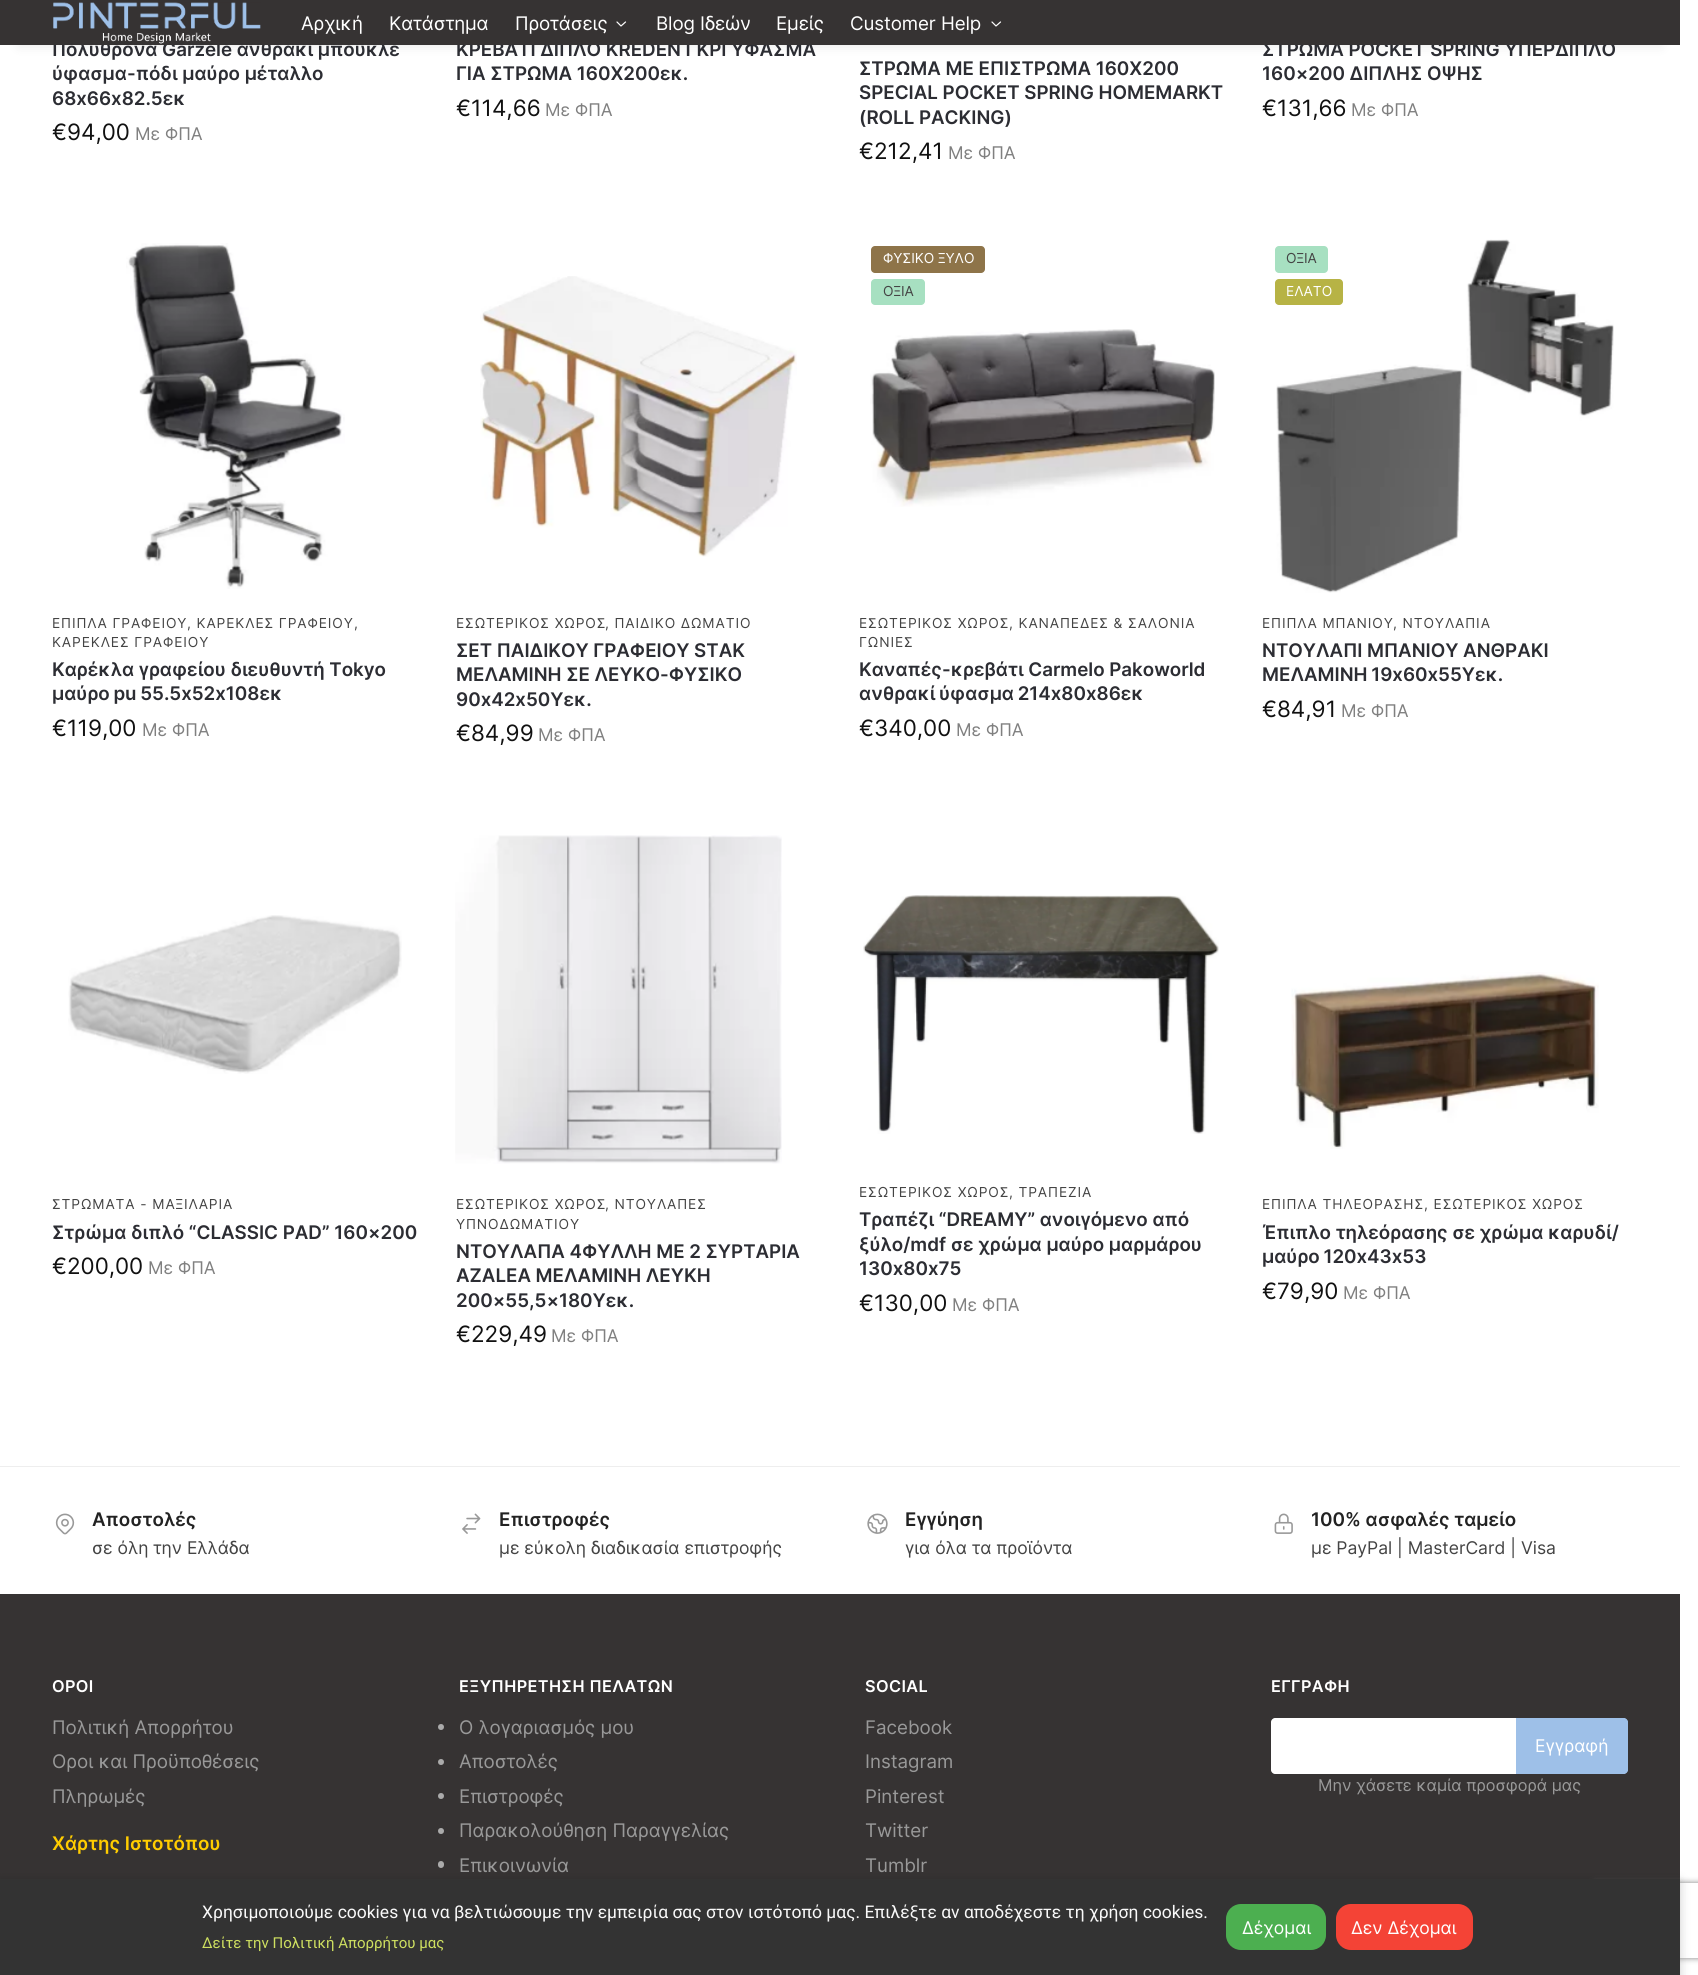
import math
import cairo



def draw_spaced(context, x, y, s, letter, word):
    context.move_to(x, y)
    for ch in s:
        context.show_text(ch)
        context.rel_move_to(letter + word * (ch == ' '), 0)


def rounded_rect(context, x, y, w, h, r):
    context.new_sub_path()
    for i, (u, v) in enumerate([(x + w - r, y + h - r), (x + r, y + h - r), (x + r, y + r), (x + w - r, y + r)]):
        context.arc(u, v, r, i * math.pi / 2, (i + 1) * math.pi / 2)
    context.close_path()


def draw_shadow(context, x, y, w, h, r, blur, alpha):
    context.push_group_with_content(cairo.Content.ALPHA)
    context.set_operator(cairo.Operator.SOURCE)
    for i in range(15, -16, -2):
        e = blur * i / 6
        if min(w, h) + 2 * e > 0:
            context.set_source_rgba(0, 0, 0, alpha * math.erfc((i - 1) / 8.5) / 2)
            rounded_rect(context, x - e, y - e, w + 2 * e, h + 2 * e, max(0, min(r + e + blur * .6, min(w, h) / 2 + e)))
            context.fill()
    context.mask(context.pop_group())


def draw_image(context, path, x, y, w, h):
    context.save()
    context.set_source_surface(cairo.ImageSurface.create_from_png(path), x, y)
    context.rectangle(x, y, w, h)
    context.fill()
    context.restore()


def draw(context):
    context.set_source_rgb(1, 1, 1)
    context.paint()
    context.set_source_rgb(0, 0, 0)
    draw_shadow(context, 19, 38, 1642, 7, 0, 6, 0.1)
    draw_image(context, "images/2.png", 126, 243, 219, 346)
    draw_image(context, "images/3.png", 480, 276, 317, 281)
    context.set_source_rgb(142 / 255, 116 / 255, 73 / 255)
    rounded_rect(context, 871, 246, 114, 27, 4)
    context.fill()
    context.set_source_rgb(167 / 255, 224 / 255, 193 / 255)
    rounded_rect(context, 871, 279, 54, 26, 4)
    context.fill()
    draw_image(context, "images/4.png", 870, 329, 345, 178)
    draw_image(context, "images/5.png", 1276, 239, 338, 354)
    rounded_rect(context, 1275, 246, 53, 27, 4)
    context.fill()
    context.set_source_rgb(183 / 255, 179 / 255, 69 / 255)
    rounded_rect(context, 1275, 279, 68, 26, 4)
    context.fill()
    draw_image(context, "images/6.png", 68, 915, 334, 159)
    draw_image(context, "images/7.png", 455, 835, 327, 329)
    draw_image(context, "images/8.png", 863, 895, 356, 239)
    draw_image(context, "images/9.png", 1291, 972, 308, 177)
    context.set_source_rgb(238 / 255, 238 / 255, 238 / 255)
    context.rectangle(0, 1466, 1680, 1)
    context.fill()
    draw_image(context, "images/10.png", 55, 1513, 20, 22)
    draw_image(context, "images/11.png", 462, 1513, 19, 21)
    draw_image(context, "images/12.png", 867, 1513, 21, 21)
    draw_image(context, "images/13.png", 1274, 1513, 19, 21)
    context.set_source_rgb(54 / 255, 51 / 255, 51 / 255)
    context.rectangle(0, 1594, 1680, 285)
    context.fill()
    context.set_source_rgb(171 / 255, 171 / 255, 171 / 255)
    context.arc(441, 1727, 3, 0, 2 * math.pi)
    context.fill()
    context.arc(441, 1762, 3, 0, 2 * math.pi)
    context.fill()
    context.arc(441, 1796, 3, 0, 2 * math.pi)
    context.fill()
    context.arc(441, 1831, 3, 0, 2 * math.pi)
    context.fill()
    rounded_rect(context, 438, 1861, 6, 7, 3)
    context.fill()
    context.set_source_rgb(1, 1, 1)
    context.new_path()
    context.move_to(1275, 1718)
    context.line_to(1622, 1718)
    context.curve_to(1625.5, 1718, 1628, 1720.5, 1628, 1724)
    context.line_to(1628, 1768)
    context.curve_to(1628, 1771.5, 1625.5, 1774, 1622, 1774)
    context.line_to(1275, 1774)
    context.curve_to(1273, 1774, 1271, 1772, 1271, 1770)
    context.line_to(1271, 1722)
    context.curve_to(1271, 1720, 1273, 1718, 1275, 1718)
    context.close_path()
    context.fill()
    context.set_source_rgb(158 / 255, 192 / 255, 232 / 255)
    context.new_path()
    context.move_to(1516, 1718)
    context.line_to(1624, 1718)
    context.curve_to(1626, 1718, 1628, 1720, 1628, 1722)
    context.line_to(1628, 1770)
    context.curve_to(1628, 1772, 1626, 1774, 1624, 1774)
    context.line_to(1516, 1774)
    context.close_path()
    context.fill()
    context.set_source_rgb(0, 0, 0)
    draw_shadow(context, 0, 1881, 1680, 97, 0, 5, 0.2)
    context.save()
    context.set_fill_rule(cairo.FillRule.EVEN_ODD)
    context.new_path()
    context.move_to(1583, 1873)
    context.line_to(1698, 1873)
    context.line_to(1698, 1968)
    context.line_to(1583, 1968)
    context.close_path()
    context.move_to(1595.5, 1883)
    context.line_to(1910.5, 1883)
    context.curve_to(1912, 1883, 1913, 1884, 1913, 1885.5)
    context.line_to(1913, 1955.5)
    context.curve_to(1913, 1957, 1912, 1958, 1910.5, 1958)
    context.line_to(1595.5, 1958)
    context.curve_to(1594, 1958, 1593, 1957, 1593, 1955.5)
    context.line_to(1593, 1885.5)
    context.curve_to(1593, 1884, 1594, 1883, 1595.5, 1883)
    context.close_path()
    context.clip()
    context.set_source_rgb(128 / 255, 128 / 255, 128 / 255)
    draw_shadow(context, 1593, 1883, 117, 75, 2.5, 3, 1)
    context.restore()
    context.set_source_rgb(51 / 255, 51 / 255, 51 / 255)
    context.rectangle(0, 1879, 1680, 96)
    context.fill()
    context.set_source_rgb(76 / 255, 175 / 255, 80 / 255)
    rounded_rect(context, 1226, 1904, 100, 46, 15)
    context.fill()
    context.set_source_rgb(244 / 255, 67 / 255, 54 / 255)
    rounded_rect(context, 1336, 1904, 137, 46, 15)
    context.fill()
    context.select_font_face("Inter SemiBold")
    context.set_font_size(18.75)
    context.set_source_rgb(44 / 255, 45 / 255, 51 / 255)
    context.move_to(52, 56)
    context.show_text("Πολυθρόνα Garzele ανθρακί μπουκλέ")
    context.move_to(52, 80)
    context.show_text("ύφασμα-πόδι μαύρο μέταλλο")
    context.move_to(52, 105)
    context.show_text("68x66x82.5εκ")
    context.select_font_face("Inter")
    context.set_font_size(22.5)
    context.set_source_rgb(17 / 255, 17 / 255, 17 / 255)
    context.move_to(52, 140)
    context.show_text("€")
    context.move_to(67, 140)
    context.show_text("94,00")
    context.set_font_size(17.5)
    context.set_source_rgb(128 / 255, 128 / 255, 128 / 255)
    context.move_to(135, 140)
    context.show_text("Με ΦΠΑ")
    context.select_font_face("Inter SemiBold")
    context.set_font_size(18.75)
    context.set_source_rgb(44 / 255, 45 / 255, 51 / 255)
    context.move_to(456, 56)
    context.show_text("ΚΡΕΒΑΤΙ ΔΙΠΛΟ KREDEN ΓΚΡΙ ΥΦΑΣΜΑ")
    context.move_to(456, 80)
    context.show_text("ΓΙΑ ΣΤΡΩΜΑ 160Χ200εκ.")
    context.select_font_face("Inter")
    context.set_font_size(22.5)
    context.set_source_rgb(17 / 255, 17 / 255, 17 / 255)
    context.move_to(456, 116)
    context.show_text("€")
    context.move_to(471, 116)
    context.show_text("114,66")
    context.set_font_size(17.5)
    context.set_source_rgb(128 / 255, 128 / 255, 128 / 255)
    context.move_to(545, 116)
    context.show_text("Με ΦΠΑ")
    context.select_font_face("Inter SemiBold")
    context.set_font_size(18.75)
    context.set_source_rgb(44 / 255, 45 / 255, 51 / 255)
    context.move_to(859, 75)
    context.show_text("ΣΤΡΩΜΑ ΜΕ ΕΠΙΣΤΡΩΜΑ 160X200")
    context.move_to(859, 99)
    context.show_text("SPECIAL POCKET SPRING HOMEMARKT")
    context.move_to(859, 124)
    context.show_text("(ROLL PACKING)")
    context.select_font_face("Inter")
    context.set_font_size(22.5)
    context.set_source_rgb(17 / 255, 17 / 255, 17 / 255)
    context.move_to(859, 159)
    context.show_text("€")
    context.move_to(874, 159)
    context.show_text("212,41")
    context.set_font_size(17.5)
    context.set_source_rgb(128 / 255, 128 / 255, 128 / 255)
    context.move_to(948, 159)
    context.show_text("Με ΦΠΑ")
    context.select_font_face("Inter SemiBold")
    context.set_font_size(18.75)
    context.set_source_rgb(44 / 255, 45 / 255, 51 / 255)
    context.move_to(1262, 56)
    context.show_text("ΣΤΡΩΜΑ POCKET SPRING ΥΠΕΡΔΙΠΛΟ")
    context.set_source_rgb(54 / 255, 51 / 255, 51 / 255)
    context.rectangle(0, 0, 1680, 45)
    context.fill()
    context.new_path()
    context.move_to(1000.5, 22)
    context.line_to(996, 26)
    context.line_to(992, 22)
    context.set_source_rgb(1, 1, 1)
    context.set_line_width(1.2)
    context.set_line_cap(cairo.LineCap.ROUND)
    context.set_line_join(cairo.LineJoin.ROUND)
    context.stroke()
    context.select_font_face("Inter")
    draw_spaced(context, 850, 30, "Customer Help", -0.1, 0)
    draw_spaced(context, 776, 30, "Εμείς", -0.1, 0)
    draw_spaced(context, 656, 30, "Blog Ιδεών", -0.1, 0)
    context.new_path()
    context.move_to(625.5, 22)
    context.line_to(621, 26)
    context.line_to(617, 22)
    context.stroke()
    draw_spaced(context, 515, 30, "Προτάσεις", -0.1, 0)
    draw_spaced(context, 389, 30, "Κατάστημα", -0.1, 0)
    draw_spaced(context, 301, 30, "Αρχική", -0.1, 0)
    draw_image(context, "images/1.png", 53, 2, 208, 42)
    context.select_font_face("Inter SemiBold")
    context.set_source_rgb(44 / 255, 45 / 255, 51 / 255)
    context.move_to(1262, 80)
    context.show_text("160×200 ΔΙΠΛΗΣ ΟΨΗΣ")
    context.select_font_face("Inter")
    context.set_font_size(22.5)
    context.set_source_rgb(17 / 255, 17 / 255, 17 / 255)
    context.move_to(1262, 116)
    context.show_text("€")
    context.move_to(1277, 116)
    context.show_text("131,66")
    context.set_font_size(17.5)
    context.set_source_rgb(128 / 255, 128 / 255, 128 / 255)
    context.move_to(1351, 116)
    context.show_text("Με ΦΠΑ")
    context.set_font_size(13.75)
    context.set_source_rgb(68 / 255, 68 / 255, 68 / 255)
    draw_spaced(context, 52, 628, "ΕΠΙΠΛΑ ΓΡΑΦΕΙΟΥ", 0.9, 0)
    draw_spaced(context, 187, 628, ", ΚΑΡΕΚΛΕΣ ΓΡΑΦΕΙΟΥ", 0.9, 0)
    draw_spaced(context, 354, 628, ",", 0.9, 0)
    draw_spaced(context, 52, 647, "ΚΑΡΕΚΛΕΣ ΓΡΑΦΕΙΟΥ", 0.9, 0)
    context.select_font_face("Inter SemiBold")
    context.set_font_size(18.75)
    context.set_source_rgb(44 / 255, 45 / 255, 51 / 255)
    context.move_to(52, 676)
    context.show_text("Καρέκλα γραφείου διευθυντή Tokyo")
    draw_spaced(context, 52, 700, "μαύρο pu 55.5x52x108εκ", 0, -1)
    context.select_font_face("Inter")
    context.set_font_size(22.5)
    context.set_source_rgb(17 / 255, 17 / 255, 17 / 255)
    context.move_to(52, 736)
    context.show_text("€")
    context.move_to(67, 736)
    context.show_text("119,00")
    context.set_font_size(17.5)
    context.set_source_rgb(128 / 255, 128 / 255, 128 / 255)
    context.move_to(142, 736)
    context.show_text("Με ΦΠΑ")
    context.set_font_size(13.75)
    context.set_source_rgb(68 / 255, 68 / 255, 68 / 255)
    draw_spaced(context, 456, 628, "ΕΣΩΤΕΡΙΚΟΣ ΧΩΡΟΣ", 0.9, 0)
    draw_spaced(context, 605, 628, ", ΠΑΙΔΙΚΟ ΔΩΜΑΤΙΟ", 0.9, 0)
    context.select_font_face("Inter SemiBold")
    context.set_font_size(18.75)
    context.set_source_rgb(44 / 255, 45 / 255, 51 / 255)
    context.move_to(456, 657)
    context.show_text("ΣΕΤ ΠΑΙΔΙΚΟΥ ΓΡΑΦΕΙΟΥ STAK")
    context.move_to(456, 681)
    context.show_text("ΜΕΛΑΜΙΝΗ ΣΕ ΛΕΥΚΟ-ΦΥΣΙΚΟ")
    context.move_to(456, 706)
    context.show_text("90x42x50Υεκ.")
    context.select_font_face("Inter")
    context.set_font_size(22.5)
    context.set_source_rgb(17 / 255, 17 / 255, 17 / 255)
    context.move_to(456, 741)
    context.show_text("€")
    context.move_to(471, 741)
    context.show_text("84,99")
    context.set_font_size(17.5)
    context.set_source_rgb(128 / 255, 128 / 255, 128 / 255)
    context.move_to(538, 741)
    context.show_text("Με ΦΠΑ")
    context.set_font_size(13.75)
    context.set_source_rgb(1, 1, 1)
    context.move_to(883, 263)
    context.show_text("ΦΥΣΙΚΟ ΞΥΛΟ")
    context.set_source_rgb(68 / 255, 68 / 255, 68 / 255)
    context.move_to(883, 296)
    context.show_text("ΟΞΙΑ")
    draw_spaced(context, 859, 628, "ΕΣΩΤΕΡΙΚΟΣ ΧΩΡΟΣ", 0.9, 0)
    draw_spaced(context, 1009, 628, ", ΚΑΝΑΠΕΔΕΣ & ΣΑΛΟΝΙΑ", 0.9, 0)
    draw_spaced(context, 859, 647, "ΓΩΝΙΕΣ", 0.9, 0)
    context.select_font_face("Inter SemiBold")
    context.set_font_size(18.75)
    context.set_source_rgb(44 / 255, 45 / 255, 51 / 255)
    context.move_to(859, 676)
    context.show_text("Καναπές-κρεβάτι Carmelo Pakoworld")
    draw_spaced(context, 859, 700, "ανθρακί ύφασμα 214x80x86εκ", 0, -1)
    context.select_font_face("Inter")
    context.set_font_size(22.5)
    context.set_source_rgb(17 / 255, 17 / 255, 17 / 255)
    context.move_to(859, 736)
    context.show_text("€")
    context.move_to(874, 736)
    context.show_text("340,00")
    context.set_font_size(17.5)
    context.set_source_rgb(128 / 255, 128 / 255, 128 / 255)
    context.move_to(956, 736)
    context.show_text("Με ΦΠΑ")
    context.set_font_size(13.75)
    context.set_source_rgb(68 / 255, 68 / 255, 68 / 255)
    context.move_to(1286, 263)
    context.show_text("ΟΞΙΑ")
    context.set_source_rgb(1, 1, 1)
    context.move_to(1286, 296)
    context.show_text("ΕΛΑΤΟ")
    context.set_source_rgb(68 / 255, 68 / 255, 68 / 255)
    draw_spaced(context, 1262, 628, "ΕΠΙΠΛΑ ΜΠΑΝΙΟΥ", 0.9, 0)
    draw_spaced(context, 1393, 628, ", ΝΤΟΥΛΑΠΙΑ", 0.9, 0)
    context.select_font_face("Inter SemiBold")
    context.set_font_size(18.75)
    context.set_source_rgb(44 / 255, 45 / 255, 51 / 255)
    context.move_to(1262, 657)
    context.show_text("ΝΤΟΥΛΑΠΙ ΜΠΑΝΙΟΥ ΑΝΘΡΑΚΙ")
    draw_spaced(context, 1262, 681, "ΜΕΛΑΜΙΝΗ 19x60x55Υεκ.", 0, -1)
    context.select_font_face("Inter")
    context.set_font_size(22.5)
    context.set_source_rgb(17 / 255, 17 / 255, 17 / 255)
    context.move_to(1262, 717)
    context.show_text("€")
    context.move_to(1277, 717)
    context.show_text("84,91")
    context.set_font_size(17.5)
    context.set_source_rgb(128 / 255, 128 / 255, 128 / 255)
    context.move_to(1341, 717)
    context.show_text("Με ΦΠΑ")
    context.set_font_size(13.75)
    context.set_source_rgb(68 / 255, 68 / 255, 68 / 255)
    draw_spaced(context, 52, 1209, "ΣΤΡΩΜΑΤΑ - ΜΑΞΙΛΑΡΙΑ", 0.9, 0)
    context.select_font_face("Inter SemiBold")
    context.set_font_size(18.75)
    context.set_source_rgb(44 / 255, 45 / 255, 51 / 255)
    context.move_to(52, 1239)
    context.show_text("Στρώμα διπλό “CLASSIC PAD” 160×200")
    context.select_font_face("Inter")
    context.set_font_size(22.5)
    context.set_source_rgb(17 / 255, 17 / 255, 17 / 255)
    context.move_to(52, 1274)
    context.show_text("€")
    context.move_to(67, 1274)
    context.show_text("200,00")
    context.set_font_size(17.5)
    context.set_source_rgb(128 / 255, 128 / 255, 128 / 255)
    context.move_to(148, 1274)
    context.show_text("Με ΦΠΑ")
    context.set_font_size(13.75)
    context.set_source_rgb(68 / 255, 68 / 255, 68 / 255)
    draw_spaced(context, 456, 1209, "ΕΣΩΤΕΡΙΚΟΣ ΧΩΡΟΣ", 0.9, 0)
    draw_spaced(context, 605, 1209, ", ΝΤΟΥΛΑΠΕΣ", 0.9, 0)
    draw_spaced(context, 456, 1229, "ΥΠΝΟΔΩΜΑΤΙΟΥ", 0.9, 0)
    context.select_font_face("Inter SemiBold")
    context.set_font_size(18.75)
    context.set_source_rgb(44 / 255, 45 / 255, 51 / 255)
    context.move_to(456, 1258)
    context.show_text("ΝΤΟΥΛΑΠΑ 4ΦΥΛΛΗ ΜΕ 2 ΣΥΡΤΑΡΙΑ")
    context.move_to(456, 1282)
    context.show_text("AZALEA ΜΕΛΑΜΙΝΗ ΛΕΥΚΗ")
    context.move_to(456, 1307)
    context.show_text("200×55,5×180Υεκ.")
    context.select_font_face("Inter")
    context.set_font_size(22.5)
    context.set_source_rgb(17 / 255, 17 / 255, 17 / 255)
    context.move_to(456, 1342)
    context.show_text("€")
    context.move_to(471, 1342)
    context.show_text("229,49")
    context.set_font_size(17.5)
    context.set_source_rgb(128 / 255, 128 / 255, 128 / 255)
    context.move_to(551, 1342)
    context.show_text("Με ΦΠΑ")
    context.set_font_size(13.75)
    context.set_source_rgb(68 / 255, 68 / 255, 68 / 255)
    draw_spaced(context, 859, 1197, "ΕΣΩΤΕΡΙΚΟΣ ΧΩΡΟΣ", 0.9, 0)
    draw_spaced(context, 1009, 1197, ", ΤΡΑΠΕΖΙΑ", 0.9, 0)
    context.select_font_face("Inter SemiBold")
    context.set_font_size(18.75)
    context.set_source_rgb(44 / 255, 45 / 255, 51 / 255)
    context.move_to(859, 1226)
    context.show_text("Τραπέζι “DREAMY” ανοιγόμενο από")
    context.move_to(859, 1251)
    context.show_text("ξύλο/mdf σε χρώμα μαύρο μαρμάρου")
    context.move_to(859, 1275)
    context.show_text("130x80x75")
    context.select_font_face("Inter")
    context.set_font_size(22.5)
    context.set_source_rgb(17 / 255, 17 / 255, 17 / 255)
    context.move_to(859, 1311)
    context.show_text("€")
    context.move_to(874, 1311)
    context.show_text("130,00")
    context.set_font_size(17.5)
    context.set_source_rgb(128 / 255, 128 / 255, 128 / 255)
    context.move_to(952, 1311)
    context.show_text("Με ΦΠΑ")
    context.set_font_size(13.75)
    context.set_source_rgb(68 / 255, 68 / 255, 68 / 255)
    draw_spaced(context, 1262, 1209, "ΕΠΙΠΛΑ ΤΗΛΕΟΡΑΣΗΣ", 0.9, 0)
    draw_spaced(context, 1424, 1209, ", ΕΣΩΤΕΡΙΚΟΣ ΧΩΡΟΣ", 0.9, 0)
    context.select_font_face("Inter SemiBold")
    context.set_font_size(18.75)
    context.set_source_rgb(44 / 255, 45 / 255, 51 / 255)
    context.move_to(1262, 1239)
    context.show_text("Έπιπλο τηλεόρασης σε χρώμα καρυδί/")
    draw_spaced(context, 1262, 1263, "μαύρο 120x43x53", 0, -1)
    context.select_font_face("Inter")
    context.set_font_size(22.5)
    context.set_source_rgb(17 / 255, 17 / 255, 17 / 255)
    context.move_to(1262, 1299)
    context.show_text("€")
    context.move_to(1277, 1299)
    context.show_text("79,90")
    context.set_font_size(17.5)
    context.set_source_rgb(128 / 255, 128 / 255, 128 / 255)
    context.move_to(1343, 1299)
    context.show_text("Με ΦΠΑ")
    context.select_font_face("Inter SemiBold")
    context.set_font_size(18.75)
    context.set_source_rgb(34 / 255, 34 / 255, 34 / 255)
    context.move_to(92, 1526)
    context.show_text("Αποστολές")
    context.select_font_face("Inter")
    context.set_font_size(17.5)
    context.set_source_rgb(68 / 255, 68 / 255, 68 / 255)
    context.move_to(92, 1554)
    context.show_text("σε όλη την Ελλάδα")
    context.select_font_face("Inter SemiBold")
    context.set_font_size(18.75)
    context.set_source_rgb(34 / 255, 34 / 255, 34 / 255)
    context.move_to(499, 1526)
    context.show_text("Επιστροφές")
    context.select_font_face("Inter")
    context.set_font_size(17.5)
    context.set_source_rgb(68 / 255, 68 / 255, 68 / 255)
    context.move_to(499, 1554)
    context.show_text("με εύκολη διαδικασία επιστροφής")
    context.select_font_face("Inter SemiBold")
    context.set_font_size(18.75)
    context.set_source_rgb(34 / 255, 34 / 255, 34 / 255)
    context.move_to(905, 1526)
    context.show_text("Εγγύηση")
    context.select_font_face("Inter")
    context.set_font_size(17.5)
    context.set_source_rgb(68 / 255, 68 / 255, 68 / 255)
    context.move_to(905, 1554)
    context.show_text("για όλα τα προϊόντα")
    context.select_font_face("Inter SemiBold")
    context.set_font_size(18.75)
    context.set_source_rgb(34 / 255, 34 / 255, 34 / 255)
    context.move_to(1311, 1526)
    context.show_text("100% ασφαλές ταμείο")
    context.select_font_face("Inter")
    context.set_font_size(17.5)
    context.set_source_rgb(68 / 255, 68 / 255, 68 / 255)
    context.move_to(1311, 1554)
    context.show_text("με PayPal | MasterCard | Visa")
    context.select_font_face("Inter SemiBold")
    context.set_font_size(16.25)
    context.set_source_rgb(1, 1, 1)
    draw_spaced(context, 52, 1692, "ΟΡΟΙ", 0.4, 0)
    context.select_font_face("Inter")
    context.set_font_size(18.75)
    context.set_source_rgb(153 / 255, 153 / 255, 153 / 255)
    context.move_to(52, 1734)
    context.show_text("Πολιτική Απορρήτου")
    context.move_to(52, 1768)
    context.show_text("Οροι και Προϋποθέσεις")
    context.move_to(52, 1803)
    context.show_text("Πληρωμές")
    context.select_font_face("Inter SemiBold")
    context.set_source_rgb(1, 204 / 255, 0)
    context.move_to(52, 1850)
    context.show_text("Χάρτης Ιστοτόπου")
    context.set_font_size(16.25)
    context.set_source_rgb(1, 1, 1)
    draw_spaced(context, 459, 1692, "ΕΞΥΠΗΡΕΤΗΣΗ ΠΕΛΑΤΩΝ", 0.4, 0)
    context.select_font_face("Inter")
    context.set_font_size(18.75)
    context.set_source_rgb(153 / 255, 153 / 255, 153 / 255)
    context.move_to(459, 1734)
    context.show_text("Ο λογαριασμός μου")
    context.move_to(459, 1768)
    context.show_text("Αποστολές")
    context.move_to(459, 1803)
    context.show_text("Επιστροφές")
    context.move_to(459, 1837)
    context.show_text("Παρακολούθηση Παραγγελίας")
    context.move_to(459, 1872)
    context.show_text("Επικοινωνία")
    context.select_font_face("Inter SemiBold")
    context.set_font_size(16.25)
    context.set_source_rgb(1, 1, 1)
    draw_spaced(context, 865, 1692, "SOCIAL", 0.4, 0)
    context.select_font_face("Inter")
    context.set_font_size(18.75)
    context.set_source_rgb(153 / 255, 153 / 255, 153 / 255)
    context.move_to(865, 1734)
    context.show_text("Facebook")
    context.move_to(865, 1768)
    context.show_text("Instagram")
    context.move_to(865, 1803)
    context.show_text("Pinterest")
    context.move_to(865, 1837)
    context.show_text("Twitter")
    context.move_to(865, 1872)
    context.show_text("Tumblr")
    context.select_font_face("Inter SemiBold")
    context.set_font_size(16.25)
    context.set_source_rgb(1, 1, 1)
    draw_spaced(context, 1271, 1692, "ΕΓΓΡΑΦΗ", 0.4, 0)
    context.select_font_face("Inter")
    context.set_font_size(17.5)
    context.move_to(1535, 1752)
    context.show_text("Εγγραφή")
    context.set_font_size(16.25)
    context.set_source_rgb(153 / 255, 153 / 255, 153 / 255)
    context.move_to(1318, 1791)
    context.show_text("Μην χάσετε καμία προσφορά μας")
    context.select_font_face("Roboto")
    context.set_font_size(17.5)
    context.set_source_rgb(249 / 255, 249 / 255, 249 / 255)
    context.move_to(202, 1918)
    context.show_text("Χρησιμοποιούμε cookies για να βελτιώσουμε την εμπειρία σας στον ιστότοπό μας. Επιλέξτε αν αποδέχεστε τη χρήση cookies.")
    context.set_font_size(15)
    context.set_source_rgb(207 / 255, 224 / 255, 96 / 255)
    context.move_to(202, 1948)
    context.show_text("Δείτε την Πολιτική Απορρήτου μας")
    context.select_font_face("Inter")
    context.set_font_size(17.5)
    context.set_source_rgb(1, 1, 1)
    context.move_to(1242, 1934)
    context.show_text("Δέχομαι")
    context.move_to(1351, 1934)
    context.show_text("Δεν Δέχομαι")


surface = cairo.ImageSurface(cairo.Format.RGB24, 1698, 1975)
context = cairo.Context(surface)
options = cairo.FontOptions()
options.set_hint_metrics(cairo.HintMetrics.OFF)
options.set_hint_style(cairo.HintStyle.NONE)
context.set_font_options(options)
context.set_miter_limit(4)
draw(context)
surface.write_to_png("out.png")
